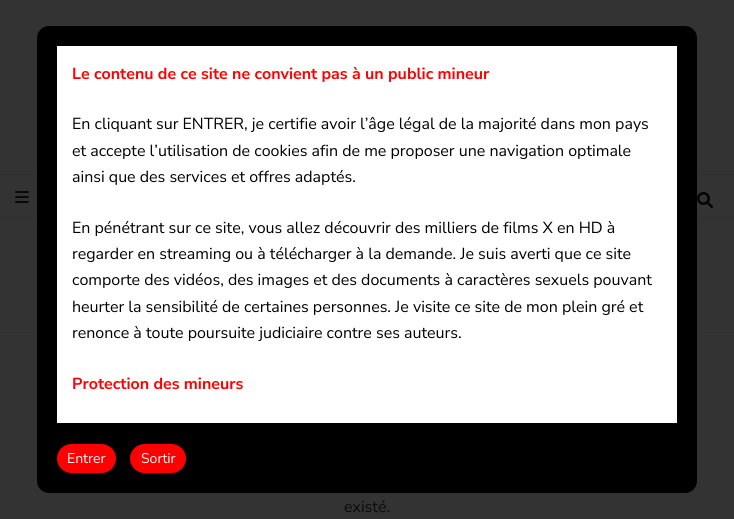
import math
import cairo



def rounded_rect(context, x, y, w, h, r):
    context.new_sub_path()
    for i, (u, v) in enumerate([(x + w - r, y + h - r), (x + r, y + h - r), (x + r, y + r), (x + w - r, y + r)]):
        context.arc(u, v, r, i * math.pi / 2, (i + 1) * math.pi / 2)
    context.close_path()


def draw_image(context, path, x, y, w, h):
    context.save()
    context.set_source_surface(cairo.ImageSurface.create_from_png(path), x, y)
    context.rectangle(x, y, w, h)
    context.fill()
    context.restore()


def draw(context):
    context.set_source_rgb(51 / 255, 51 / 255, 51 / 255)
    context.paint()
    context.set_source_rgb(48 / 255, 48 / 255, 48 / 255)
    context.rectangle(0, 174, 734, 1)
    context.fill()
    context.rectangle(0, 218, 734, 1)
    context.fill()
    context.rectangle(0, 332, 734, 1)
    context.fill()
    context.set_source_rgb(0, 0, 0)
    rounded_rect(context, 37, 26, 660, 467, 12)
    context.fill()
    context.set_source_rgb(1, 1, 1)
    context.rectangle(57, 46, 620, 377)
    context.fill()
    context.set_source_rgb(1, 0, 0)
    rounded_rect(context, 57, 444, 59, 29, 14.5)
    context.fill()
    rounded_rect(context, 130, 444, 56, 29, 14.5)
    context.fill()
    draw_image(context, "images/1.png", 15, 191, 14, 12)
    draw_image(context, "images/2.png", 697, 192, 16, 16)
    context.select_font_face("Nunito Sans", cairo.FontSlant.NORMAL, cairo.FontWeight.BOLD)
    context.set_font_size(16)
    context.move_to(72, 79)
    context.show_text("Le contenu de ce site ne convient pas à un public mineur")
    context.select_font_face("Nunito Sans")
    context.set_source_rgb(0, 0, 0)
    context.move_to(72, 129)
    context.show_text("En cliquant sur ENTRER, je certifie avoir l’âge légal de la majorité dans mon pays")
    context.move_to(72, 156)
    context.show_text("et accepte l’utilisation de cookies afin de me proposer une navigation optimale")
    context.move_to(72, 182)
    context.show_text("ainsi que des services et offres adaptés.")
    context.move_to(72, 233)
    context.show_text("En pénétrant sur ce site, vous allez découvrir des milliers de films X en HD à")
    context.move_to(72, 259)
    context.show_text("regarder en streaming ou à télécharger à la demande. Je suis averti que ce site")
    context.move_to(72, 285)
    context.show_text("comporte des vidéos, des images et des documents à caractères sexuels pouvant")
    context.move_to(72, 312)
    context.show_text("heurter la sensibilité de certaines personnes. Je visite ce site de mon plein gré et")
    context.move_to(72, 338)
    context.show_text("renonce à toute poursuite judiciaire contre ses auteurs.")
    context.select_font_face("Nunito Sans", cairo.FontSlant.NORMAL, cairo.FontWeight.BOLD)
    context.set_source_rgb(1, 0, 0)
    context.move_to(72, 389)
    context.show_text("Protection des mineurs")
    context.select_font_face("Nunito Sans")
    context.set_font_size(14)
    context.set_source_rgb(1, 1, 1)
    context.move_to(67, 463)
    context.show_text("Entrer")
    context.move_to(141, 463)
    context.show_text("Sortir")
    context.set_font_size(16)
    context.set_source_rgb(10 / 255, 10 / 255, 10 / 255)
    context.move_to(344, 512)
    context.show_text("existé.")


surface = cairo.ImageSurface(cairo.Format.RGB24, 734, 519)
context = cairo.Context(surface)
options = cairo.FontOptions()
options.set_hint_metrics(cairo.HintMetrics.OFF)
options.set_hint_style(cairo.HintStyle.NONE)
context.set_font_options(options)
context.set_miter_limit(4)
draw(context)
surface.write_to_png("out.png")
